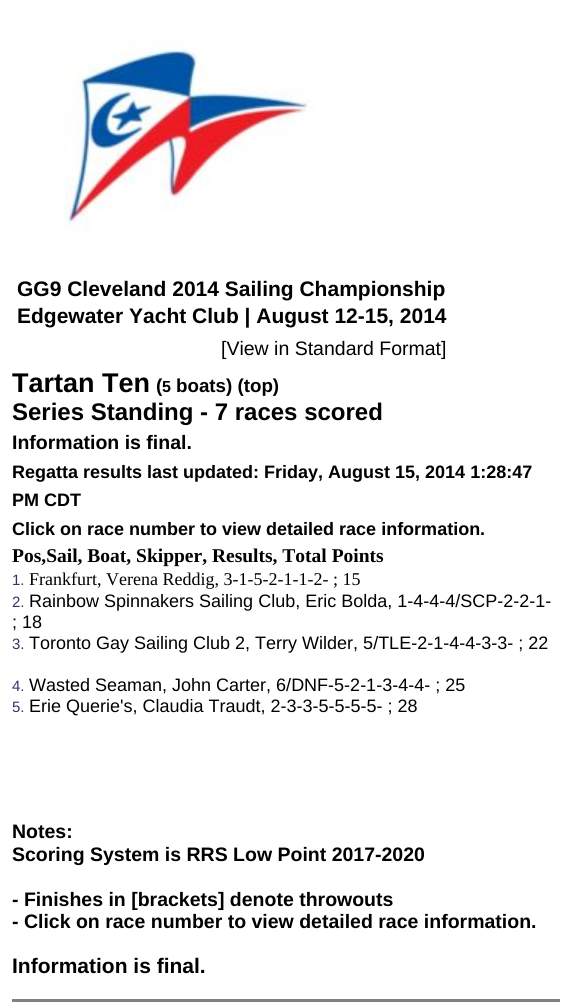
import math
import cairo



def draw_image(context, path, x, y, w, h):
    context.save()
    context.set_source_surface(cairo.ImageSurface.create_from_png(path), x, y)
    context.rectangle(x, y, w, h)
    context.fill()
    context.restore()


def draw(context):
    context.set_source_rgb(1, 1, 1)
    context.paint()
    draw_image(context, "images/1.png", 63, 40, 252, 192)
    context.set_source_rgb(128 / 255, 128 / 255, 128 / 255)
    context.rectangle(12, 999, 548, 3)
    context.fill()
    context.select_font_face("Liberation Sans", cairo.FontSlant.NORMAL, cairo.FontWeight.BOLD)
    context.set_font_size(21)
    context.set_source_rgb(0, 0, 0)
    context.move_to(17, 296)
    context.show_text("GG9 Cleveland 2014 Sailing Championship")
    context.move_to(17, 323)
    context.show_text("Edgewater Yacht Club | August 12-15, 2014")
    context.select_font_face("Liberation Sans")
    context.set_font_size(19.5)
    context.move_to(221, 355)
    context.show_text("[View in Standard Format]")
    context.select_font_face("Liberation Sans", cairo.FontSlant.NORMAL, cairo.FontWeight.BOLD)
    context.set_font_size(27)
    context.move_to(12, 392)
    context.show_text("Tartan Ten")
    context.set_font_size(18.75)
    context.move_to(156, 392)
    context.show_text("(")
    context.set_font_size(16)
    context.move_to(162, 392)
    context.show_text("5")
    context.set_font_size(18.75)
    context.move_to(176, 392)
    context.show_text("boats) (top)")
    context.set_font_size(24)
    context.move_to(12, 420)
    context.show_text("Series Standing - 7 races scored")
    context.set_font_size(19.5)
    context.move_to(12, 449)
    context.show_text("Information is final.")
    context.set_font_size(18)
    context.move_to(12, 478)
    context.show_text("Regatta results last updated: Friday, August 15, 2014 1:28:47")
    context.move_to(12, 506)
    context.show_text("PM CDT")
    context.move_to(12, 535)
    context.show_text("Click on race number to view detailed race information.")
    context.select_font_face("Liberation Serif", cairo.FontSlant.NORMAL, cairo.FontWeight.BOLD)
    context.set_font_size(19.5)
    context.move_to(12, 562)
    context.show_text("Pos,Sail, Boat, Skipper, Results, Total Points")
    context.select_font_face("Liberation Sans")
    context.set_font_size(15)
    context.set_source_rgb(51 / 255, 51 / 255, 102 / 255)
    context.move_to(12, 585)
    context.show_text("1.")
    context.select_font_face("Liberation Serif")
    context.set_font_size(18)
    context.set_source_rgb(0, 0, 0)
    context.move_to(29, 585)
    context.show_text("Frankfurt, Verena Reddig, 3-1-5-2-1-1-2- ; 15")
    context.select_font_face("Liberation Sans")
    context.set_font_size(15)
    context.set_source_rgb(51 / 255, 51 / 255, 102 / 255)
    context.move_to(12, 607)
    context.show_text("2.")
    context.set_font_size(18)
    context.set_source_rgb(0, 0, 0)
    context.move_to(29, 607)
    context.show_text("Rainbow Spinnakers Sailing Club, Eric Bolda, 1-4-4-4/SCP-2-2-1-")
    context.move_to(12, 628)
    context.show_text("; 18")
    context.set_font_size(15)
    context.set_source_rgb(51 / 255, 51 / 255, 102 / 255)
    context.move_to(12, 649)
    context.show_text("3.")
    context.set_font_size(18)
    context.set_source_rgb(0, 0, 0)
    context.move_to(29, 649)
    context.show_text("Toronto Gay Sailing Club 2, Terry Wilder, 5/TLE-2-1-4-4-3-3- ; 22")
    context.set_font_size(15)
    context.set_source_rgb(51 / 255, 51 / 255, 102 / 255)
    context.move_to(12, 691)
    context.show_text("4.")
    context.set_font_size(18)
    context.set_source_rgb(0, 0, 0)
    context.move_to(29, 691)
    context.show_text("Wasted Seaman, John Carter, 6/DNF-5-2-1-3-4-4- ; 25")
    context.set_font_size(15)
    context.set_source_rgb(51 / 255, 51 / 255, 102 / 255)
    context.move_to(12, 712)
    context.show_text("5.")
    context.set_font_size(18)
    context.set_source_rgb(0, 0, 0)
    context.move_to(29, 712)
    context.show_text("Erie Querie's, Claudia Traudt, 2-3-3-5-5-5-5- ; 28")
    context.select_font_face("Liberation Sans", cairo.FontSlant.NORMAL, cairo.FontWeight.BOLD)
    context.set_font_size(19.5)
    context.move_to(12, 838)
    context.show_text("Notes:")
    context.move_to(12, 861)
    context.show_text("Scoring System is RRS Low Point 2017-2020")
    context.move_to(12, 906)
    context.show_text("- Finishes in [brackets] denote throwouts")
    context.move_to(12, 928)
    context.show_text("- Click on race number to view detailed race information.")
    context.set_font_size(21)
    context.move_to(12, 973)
    context.show_text("Information is final.")


surface = cairo.ImageSurface(cairo.Format.RGB24, 568, 1003)
context = cairo.Context(surface)
options = cairo.FontOptions()
options.set_hint_metrics(cairo.HintMetrics.OFF)
options.set_hint_style(cairo.HintStyle.NONE)
context.set_font_options(options)
context.set_miter_limit(4)
draw(context)
surface.write_to_png("out.png")
